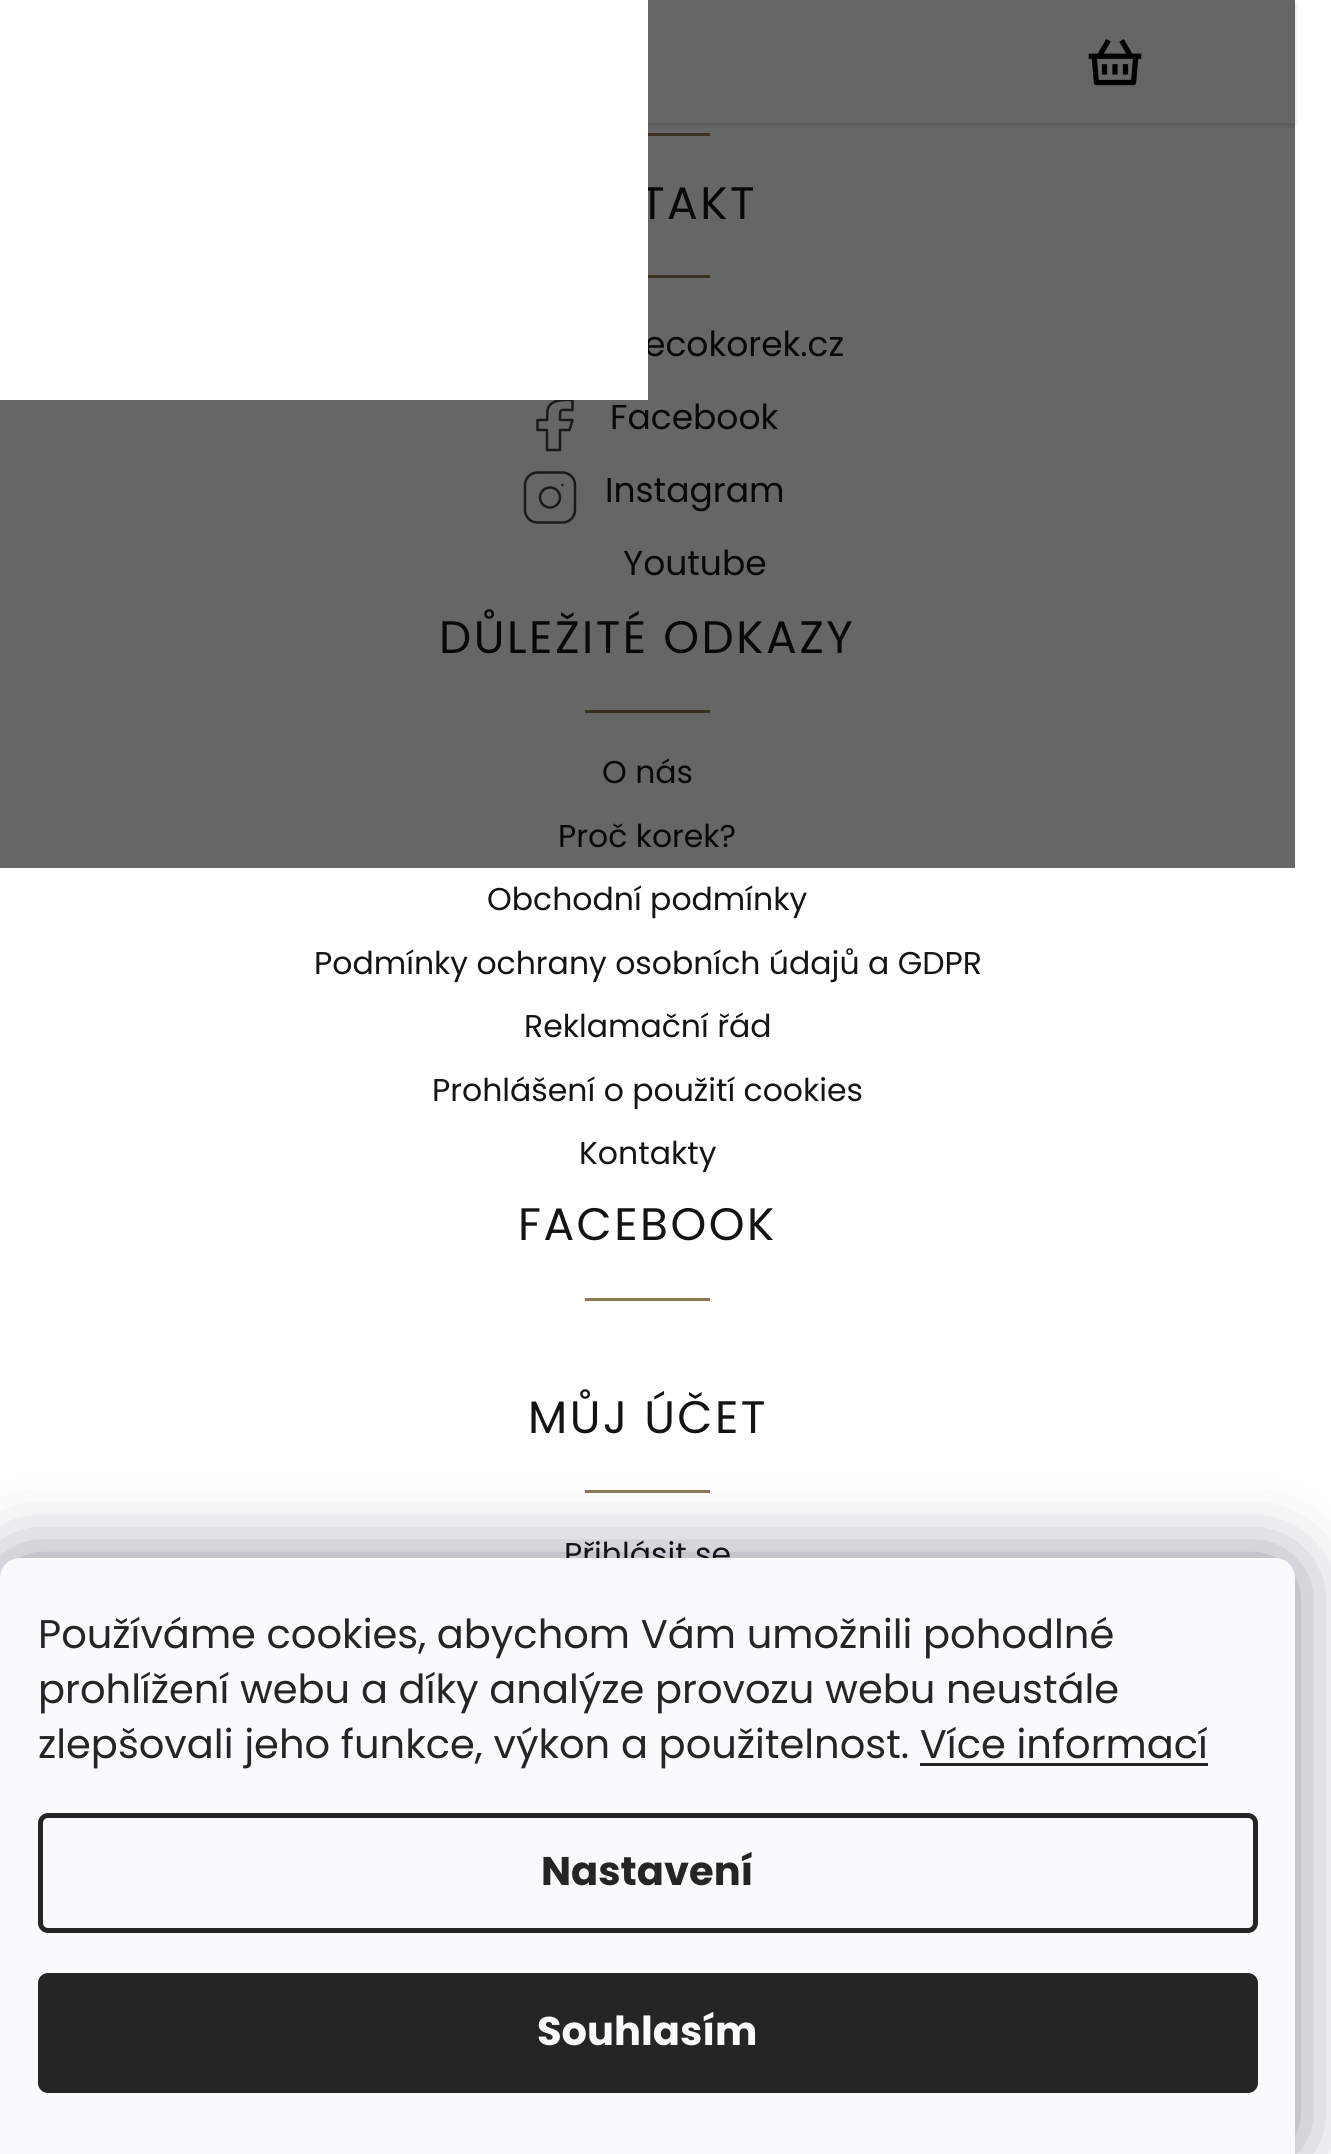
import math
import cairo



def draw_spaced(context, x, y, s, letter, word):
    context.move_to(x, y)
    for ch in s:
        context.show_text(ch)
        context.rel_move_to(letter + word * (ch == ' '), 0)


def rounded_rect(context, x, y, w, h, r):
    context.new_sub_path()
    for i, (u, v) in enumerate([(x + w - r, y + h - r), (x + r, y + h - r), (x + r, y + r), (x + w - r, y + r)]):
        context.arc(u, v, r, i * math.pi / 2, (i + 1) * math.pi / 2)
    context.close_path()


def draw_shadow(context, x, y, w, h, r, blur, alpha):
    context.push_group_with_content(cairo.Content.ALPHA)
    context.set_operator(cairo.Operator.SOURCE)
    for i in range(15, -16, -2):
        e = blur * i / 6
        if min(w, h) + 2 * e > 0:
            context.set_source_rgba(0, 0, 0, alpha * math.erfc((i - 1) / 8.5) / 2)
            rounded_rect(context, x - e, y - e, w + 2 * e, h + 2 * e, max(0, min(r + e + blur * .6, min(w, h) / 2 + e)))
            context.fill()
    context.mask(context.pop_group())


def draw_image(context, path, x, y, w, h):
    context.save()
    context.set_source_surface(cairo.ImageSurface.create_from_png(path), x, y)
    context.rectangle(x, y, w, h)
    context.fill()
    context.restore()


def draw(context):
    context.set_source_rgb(1, 1, 1)
    context.paint()
    context.set_source_rgb(139 / 255, 123 / 255, 83 / 255)
    context.rectangle(648, 133, 62, 3)
    context.fill()
    context.set_source_rgb(0, 0, 0)
    draw_shadow(context, 0, 3, 1295, 122, 0, 2.5, 0.16)
    context.set_source_rgb(1, 1, 1)
    context.rectangle(648, 0, 647, 123)
    context.fill()
    draw_image(context, "images/1.png", 1088, 39, 54, 47)
    context.set_source_rgb(139 / 255, 123 / 255, 83 / 255)
    context.rectangle(648, 275, 62, 3)
    context.fill()
    context.new_path()
    context.move_to(572.5, 400)
    context.curve_to(563.5, 400, 550, 399, 547.5, 410)
    context.line_to(547, 420)
    context.line_to(537.5, 420)
    context.line_to(537.5, 430)
    context.line_to(547, 430)
    context.line_to(547, 450)
    context.line_to(560, 450)
    context.line_to(560, 430)
    context.line_to(569.5, 430)
    context.line_to(572.5, 420)
    context.line_to(560, 420)
    context.curve_to(560, 407.5, 559.5, 410, 572.5, 410)
    context.close_path()
    context.set_source_rgb(65 / 255, 65 / 255, 65 / 255)
    context.set_line_width(2.5)
    context.set_line_cap(cairo.LineCap.ROUND)
    context.set_line_join(cairo.LineJoin.ROUND)
    context.stroke()
    draw_image(context, "images/2.png", 523, 471, 54, 53)
    context.set_source_rgb(139 / 255, 123 / 255, 83 / 255)
    context.rectangle(585, 710, 125, 3)
    context.fill()
    context.rectangle(585, 1298, 125, 3)
    context.fill()
    context.rectangle(585, 1490, 125, 3)
    context.fill()
    context.set_source_rgb(27 / 255, 25 / 255, 57 / 255)
    draw_shadow(context, 0, 1558, 1295, 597, 20, 37.5, 0.5)
    context.select_font_face("Poppins")
    context.set_font_size(45.5)
    context.set_source_rgb(20 / 255, 20 / 255, 20 / 255)
    draw_spaced(context, 640, 219, "TAKT", 2.5, 0)
    context.set_font_size(34.5)
    context.move_to(644, 356)
    context.show_text("ecokorek.cz")
    context.move_to(610, 429)
    context.show_text("Facebook")
    context.move_to(605, 502)
    context.show_text("Instagram")
    context.move_to(623, 575)
    context.show_text("Youtube")
    context.set_font_size(45.5)
    draw_spaced(context, 439, 653, "DŮLEŽITÉ ODKAZY", 2.5, 0)
    context.set_font_size(31.5)
    context.move_to(602, 783)
    context.show_text("O nás")
    context.move_to(558, 847)
    context.show_text("Proč korek?")
    context.set_source_rgba(0, 0, 0, 0.6)
    context.rectangle(0, 0, 1295, 868)
    context.fill()
    context.set_source_rgb(1, 1, 1)
    context.rectangle(0, 0, 648, 400)
    context.fill()
    context.set_source_rgb(20 / 255, 20 / 255, 20 / 255)
    context.move_to(487, 910)
    context.show_text("Obchodní podmínky")
    context.move_to(314, 974)
    context.show_text("Podmínky ochrany osobních údajů a GDPR")
    context.move_to(524, 1037)
    context.show_text("Reklamační řád")
    context.move_to(432, 1101)
    context.show_text("Prohlášení o použití cookies")
    context.move_to(579, 1164)
    context.show_text("Kontakty")
    context.set_font_size(45.5)
    draw_spaced(context, 518, 1240, "FACEBOOK", 2.5, 0)
    draw_spaced(context, 528, 1433, "MŮJ ÚČET", 2.5, 0)
    context.set_font_size(31.5)
    context.move_to(564, 1565)
    context.show_text("Přihlásit se")
    context.set_source_rgb(248 / 255, 250 / 255, 251 / 255)
    context.new_path()
    context.move_to(20, 1558)
    context.line_to(1275, 1558)
    context.curve_to(1286, 1558, 1295, 1567, 1295, 1578)
    context.line_to(1295, 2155)
    context.line_to(0, 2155)
    context.line_to(0, 1578)
    context.curve_to(0, 1567, 9, 1558, 20, 1558)
    context.close_path()
    context.fill()
    context.set_font_size(40)
    context.set_source_rgb(37 / 255, 37 / 255, 37 / 255)
    context.move_to(38, 1648)
    context.show_text("Používáme cookies, abychom Vám umožnili pohodlné")
    context.move_to(38, 1703)
    context.show_text("prohlížení webu a díky analýze provozu webu neustále")
    context.move_to(38, 1758)
    context.show_text("zlepšovali jeho funkce, výkon a použitelnost. Více informací")
    context.rectangle(920, 1763, 288, 3)
    context.fill()
    rounded_rect(context, 40.5, 1815.5, 1215, 115, 7.5)
    context.set_line_width(5)
    context.set_line_cap(cairo.LineCap.BUTT)
    context.set_line_join(cairo.LineJoin.MITER)
    context.stroke()
    context.select_font_face("Poppins", cairo.FontSlant.NORMAL, cairo.FontWeight.BOLD)
    context.move_to(541, 1885)
    context.show_text("Nastavení")
    rounded_rect(context, 38, 1973, 1220, 120, 10)
    context.fill()
    context.set_source_rgb(248 / 255, 250 / 255, 251 / 255)
    context.move_to(537, 2045)
    context.show_text("Souhlasím")


surface = cairo.ImageSurface(cairo.Format.RGB24, 1331, 2154)
context = cairo.Context(surface)
options = cairo.FontOptions()
options.set_hint_metrics(cairo.HintMetrics.OFF)
options.set_hint_style(cairo.HintStyle.NONE)
context.set_font_options(options)
context.set_miter_limit(4)
draw(context)
surface.write_to_png("out.png")
